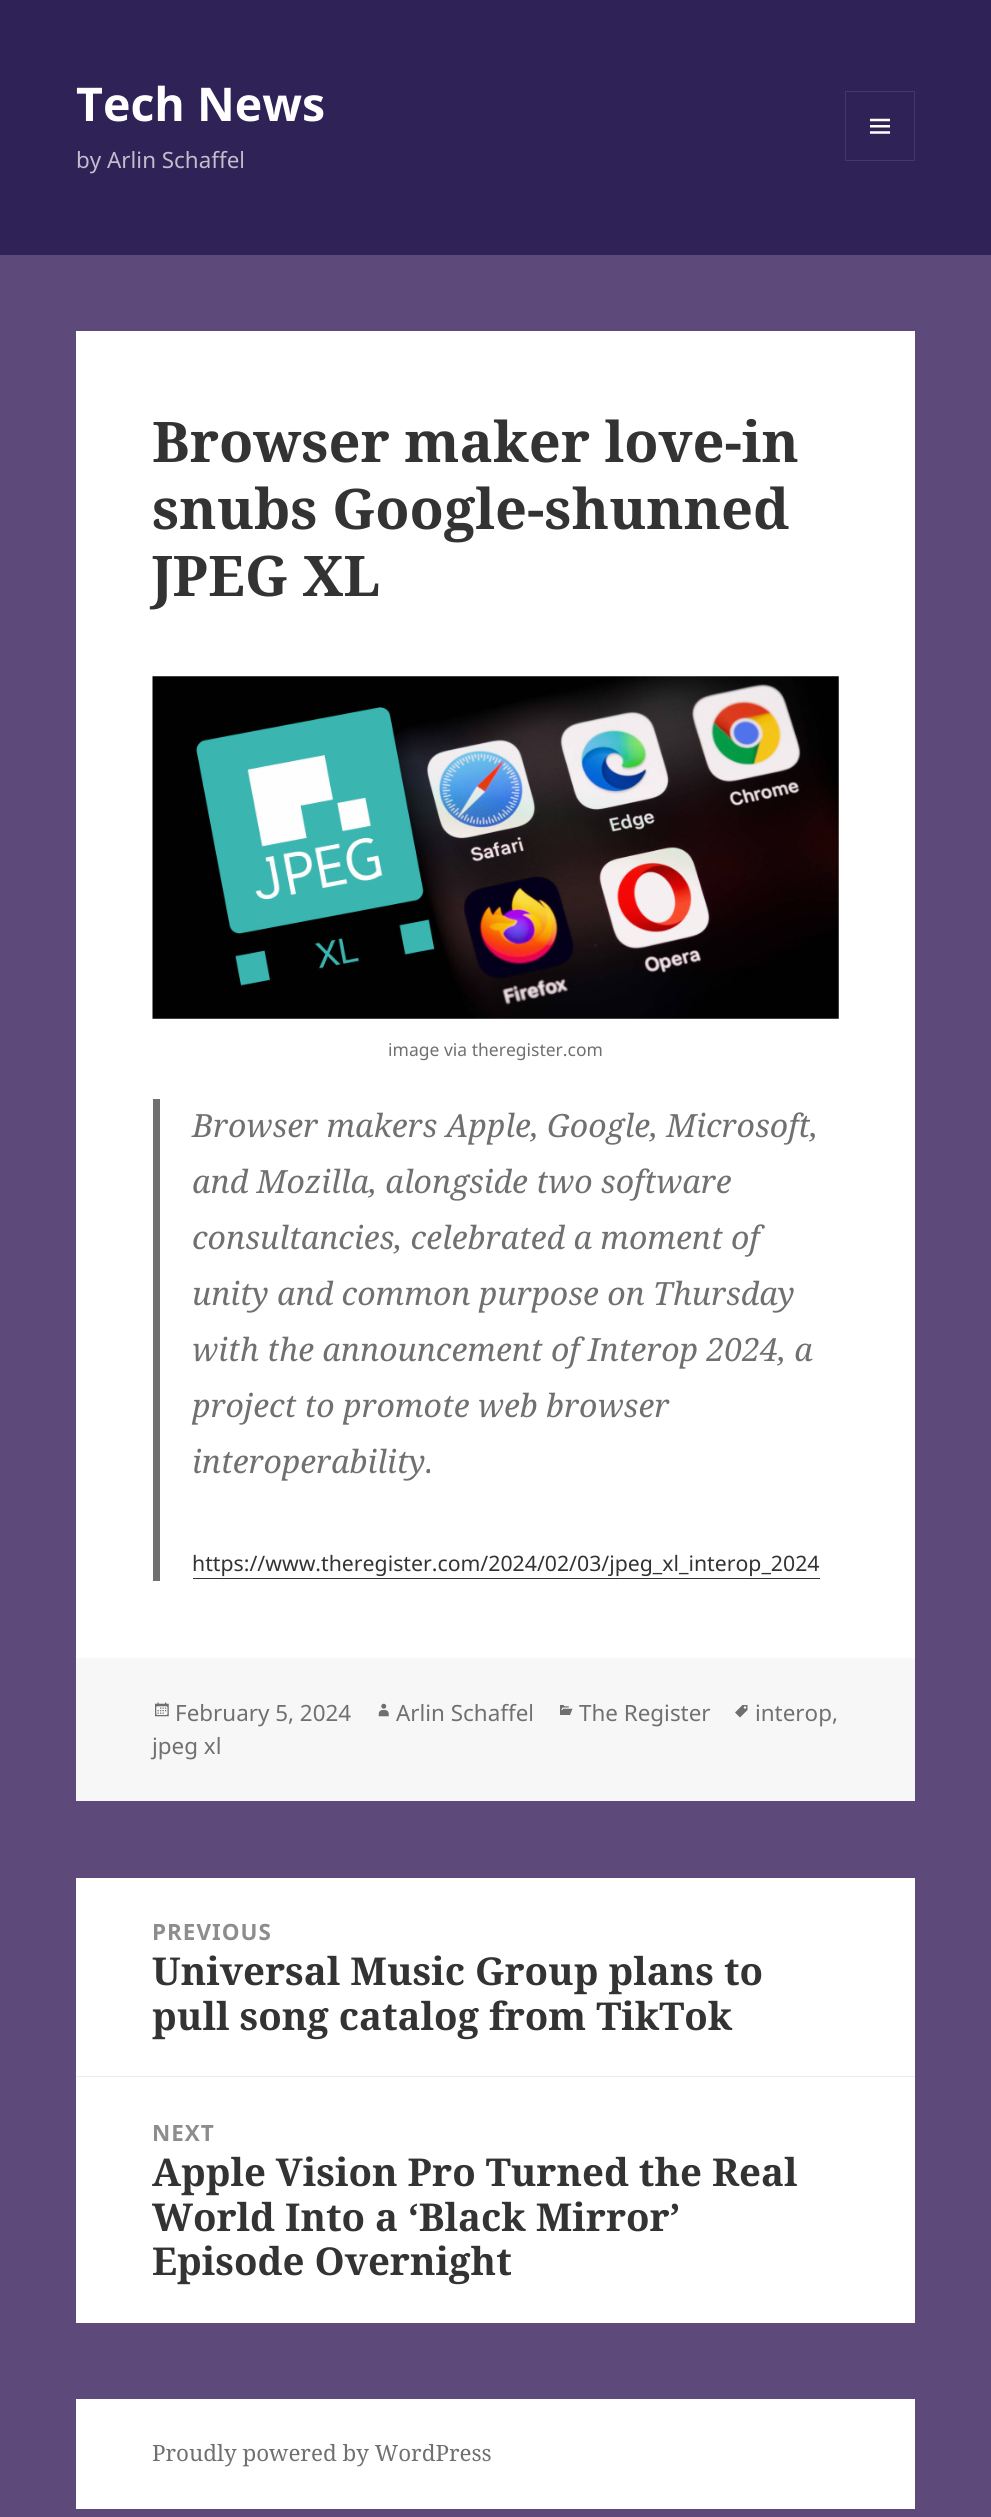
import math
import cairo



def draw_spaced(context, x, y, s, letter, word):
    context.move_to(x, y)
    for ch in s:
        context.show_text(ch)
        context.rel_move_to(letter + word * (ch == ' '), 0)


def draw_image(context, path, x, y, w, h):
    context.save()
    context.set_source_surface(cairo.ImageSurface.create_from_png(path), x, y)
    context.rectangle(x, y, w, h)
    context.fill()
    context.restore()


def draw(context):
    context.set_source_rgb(94 / 255, 74 / 255, 122 / 255)
    context.paint()
    context.set_source_rgb(46 / 255, 34 / 255, 86 / 255)
    context.rectangle(0, 0, 991, 254)
    context.fill()
    context.set_source_rgb(46 / 255, 36 / 255, 83 / 255)
    context.rectangle(0, 254, 991, 1)
    context.fill()
    context.rectangle(845.5, 91.5, 69, 69)
    context.set_source_rgb(67 / 255, 56 / 255, 103 / 255)
    context.set_line_width(1)
    context.stroke()
    draw_image(context, "images/1.png", 870, 118, 20, 16)
    context.set_source_rgb(1, 1, 1)
    context.rectangle(76, 331, 839, 1327)
    context.fill()
    draw_image(context, "images/2.png", 152, 676, 687, 343)
    context.set_source_rgb(112 / 255, 112 / 255, 112 / 255)
    context.rectangle(153, 1099, 7, 482)
    context.fill()
    context.set_source_rgb(51 / 255, 51 / 255, 51 / 255)
    context.rectangle(193, 1578, 627, 1)
    context.fill()
    context.set_source_rgb(247 / 255, 247 / 255, 247 / 255)
    context.rectangle(76, 1658, 839, 143)
    context.fill()
    draw_image(context, "images/3.png", 378, 1703, 11, 14)
    draw_image(context, "images/4.png", 735, 1705, 13, 13)
    draw_image(context, "images/5.png", 155, 1702, 14, 15)
    draw_image(context, "images/6.png", 560, 1705, 13, 10)
    context.set_source_rgb(1, 1, 1)
    context.rectangle(76, 1878, 839, 445)
    context.fill()
    context.set_source_rgb(235 / 255, 235 / 255, 235 / 255)
    context.rectangle(76, 2076, 839, 1)
    context.fill()
    context.set_source_rgb(1, 1, 1)
    context.rectangle(76, 2399, 839, 110)
    context.fill()
    context.select_font_face("Noto Sans", cairo.FontSlant.NORMAL, cairo.FontWeight.BOLD)
    context.set_font_size(46.5)
    context.move_to(76, 121)
    context.show_text("Tech News")
    context.select_font_face("Noto Sans")
    context.set_font_size(22.4)
    context.set_source_rgb(192 / 255, 189 / 255, 204 / 255)
    context.move_to(76, 168)
    context.show_text("by Arlin Schaffel")
    context.select_font_face("Noto Serif", cairo.FontSlant.NORMAL, cairo.FontWeight.BOLD)
    context.set_font_size(56)
    context.set_source_rgb(51 / 255, 51 / 255, 51 / 255)
    context.move_to(152, 462)
    context.show_text("Browser maker love-in")
    context.move_to(152, 529)
    context.show_text("snubs Google-shunned")
    context.move_to(152, 596)
    context.show_text("JPEG XL")
    context.select_font_face("Noto Sans")
    context.set_font_size(17.5)
    context.set_source_rgb(112 / 255, 112 / 255, 112 / 255)
    context.move_to(388, 1056)
    context.show_text("image via theregister.com")
    context.select_font_face("Noto Serif", cairo.FontSlant.ITALIC)
    context.set_font_size(32)
    context.move_to(192, 1137)
    context.show_text("Browser makers Apple, Google, Microsoft,")
    context.move_to(192, 1193)
    context.show_text("and Mozilla, alongside two software")
    context.move_to(192, 1249)
    context.show_text("consultancies, celebrated a moment of")
    context.move_to(192, 1305)
    context.show_text("unity and common purpose on Thursday")
    context.move_to(192, 1361)
    context.show_text("with the announcement of Interop 2024, a")
    context.move_to(192, 1417)
    context.show_text("project to promote web browser")
    context.move_to(192, 1473)
    context.show_text("interoperability.")
    context.select_font_face("Noto Sans")
    context.set_font_size(21.25)
    context.set_source_rgb(51 / 255, 51 / 255, 51 / 255)
    context.move_to(192, 1571)
    context.show_text("https://www.theregister.com/2024/02/03/jpeg_xl_interop_2024")
    context.set_font_size(22.4)
    context.set_source_rgb(112 / 255, 112 / 255, 112 / 255)
    context.move_to(396, 1721)
    context.show_text("Arlin Schaffel")
    context.move_to(755, 1721)
    context.show_text("interop,")
    context.move_to(152, 1754)
    context.show_text("jpeg xl")
    context.move_to(175, 1721)
    context.show_text("February 5, 2024")
    context.move_to(579, 1721)
    context.show_text("The Register")
    context.select_font_face("Noto Sans", cairo.FontSlant.NORMAL, cairo.FontWeight.BOLD)
    context.set_source_rgb(141 / 255, 141 / 255, 141 / 255)
    draw_spaced(context, 152, 1940, "PREVIOUS", 1, 0)
    context.select_font_face("Noto Serif", cairo.FontSlant.NORMAL, cairo.FontWeight.BOLD)
    context.set_font_size(38.4)
    context.set_source_rgb(51 / 255, 51 / 255, 51 / 255)
    context.move_to(152, 1985)
    context.show_text("Universal Music Group plans to")
    context.move_to(152, 2030)
    context.show_text("pull song catalog from TikTok")
    context.select_font_face("Noto Sans", cairo.FontSlant.NORMAL, cairo.FontWeight.BOLD)
    context.set_font_size(22.4)
    context.set_source_rgb(141 / 255, 141 / 255, 141 / 255)
    draw_spaced(context, 152, 2141, "NEXT", 1, 0)
    context.select_font_face("Noto Serif", cairo.FontSlant.NORMAL, cairo.FontWeight.BOLD)
    context.set_font_size(38.4)
    context.set_source_rgb(51 / 255, 51 / 255, 51 / 255)
    context.move_to(152, 2186)
    context.show_text("Apple Vision Pro Turned the Real")
    context.move_to(152, 2231)
    context.show_text("World Into a ‘Black Mirror’")
    context.move_to(152, 2275)
    context.show_text("Episode Overnight")
    context.select_font_face("Noto Serif")
    context.set_font_size(22.4)
    context.set_source_rgb(112 / 255, 112 / 255, 112 / 255)
    context.move_to(152, 2461)
    context.show_text("Proudly powered by WordPress")


surface = cairo.ImageSurface(cairo.Format.RGB24, 991, 2517)
context = cairo.Context(surface)
options = cairo.FontOptions()
options.set_hint_metrics(cairo.HintMetrics.OFF)
options.set_hint_style(cairo.HintStyle.NONE)
context.set_font_options(options)
context.set_miter_limit(4)
draw(context)
surface.write_to_png("out.png")
